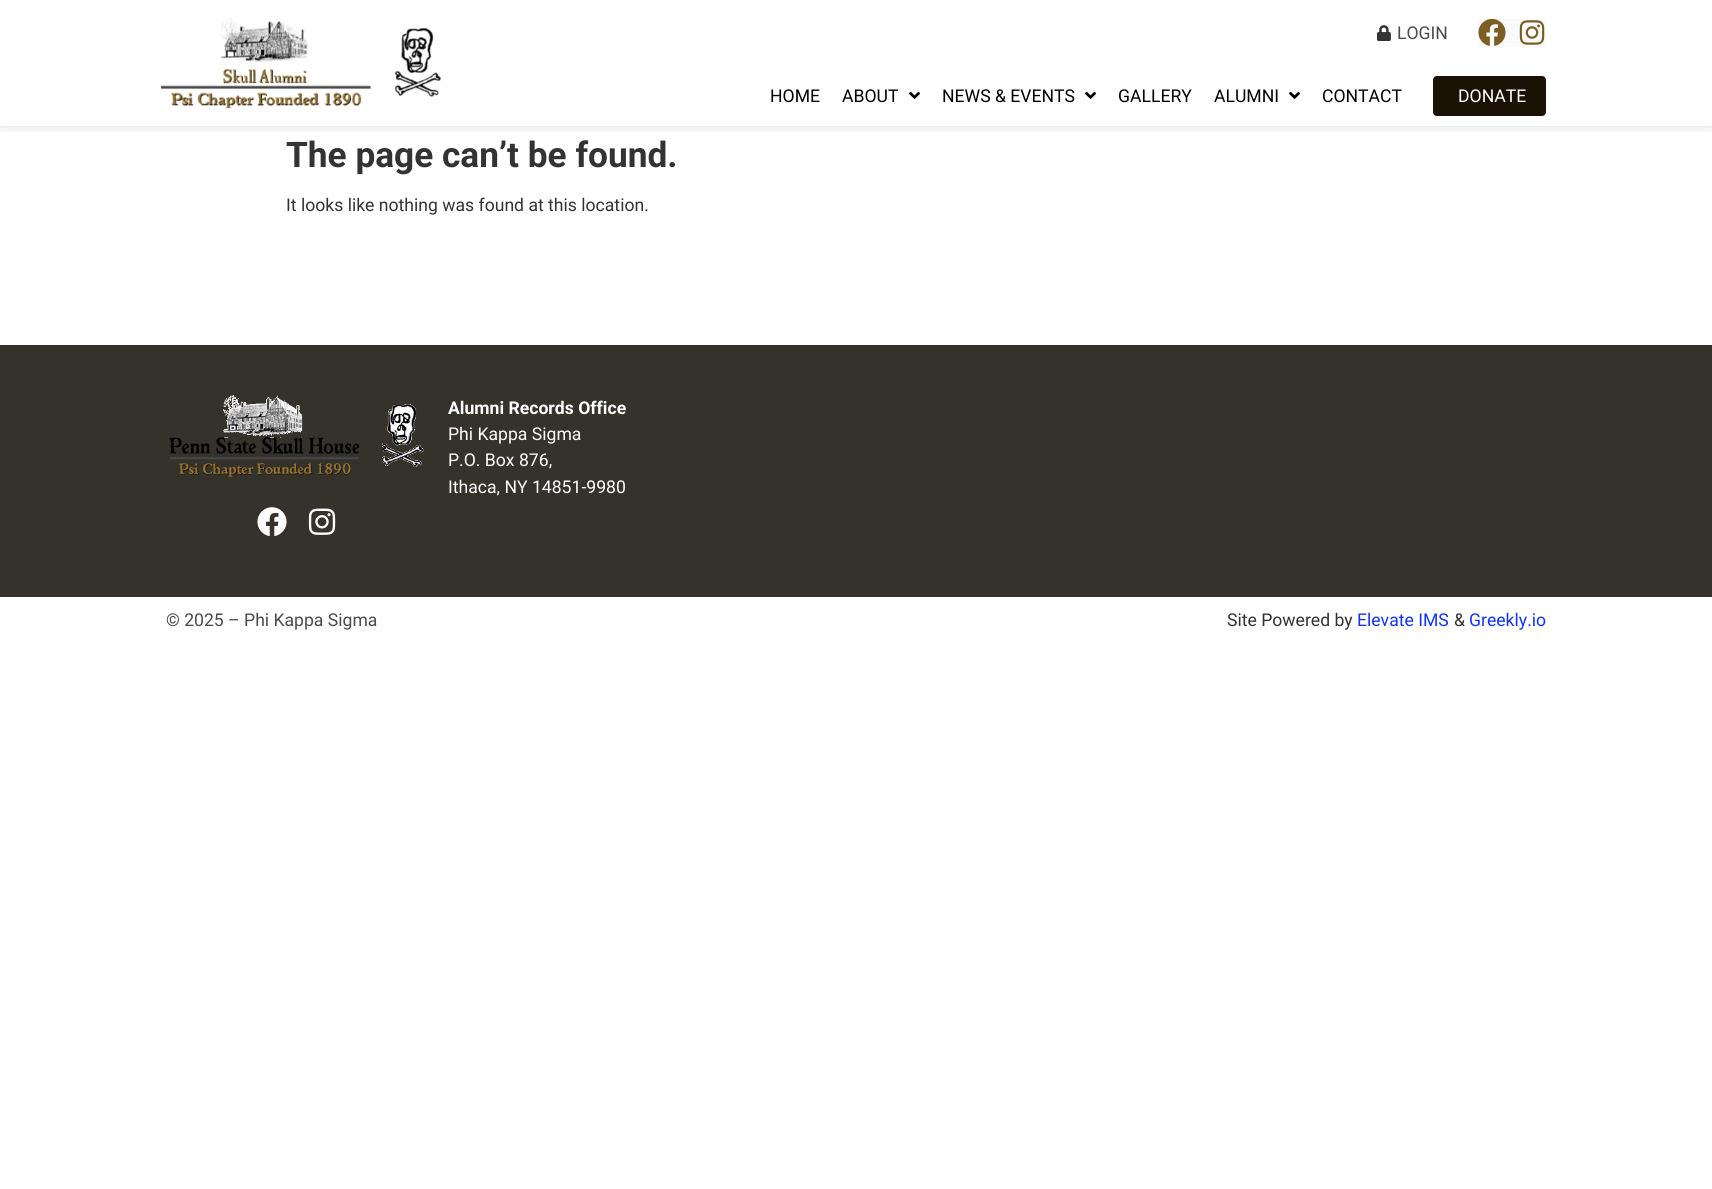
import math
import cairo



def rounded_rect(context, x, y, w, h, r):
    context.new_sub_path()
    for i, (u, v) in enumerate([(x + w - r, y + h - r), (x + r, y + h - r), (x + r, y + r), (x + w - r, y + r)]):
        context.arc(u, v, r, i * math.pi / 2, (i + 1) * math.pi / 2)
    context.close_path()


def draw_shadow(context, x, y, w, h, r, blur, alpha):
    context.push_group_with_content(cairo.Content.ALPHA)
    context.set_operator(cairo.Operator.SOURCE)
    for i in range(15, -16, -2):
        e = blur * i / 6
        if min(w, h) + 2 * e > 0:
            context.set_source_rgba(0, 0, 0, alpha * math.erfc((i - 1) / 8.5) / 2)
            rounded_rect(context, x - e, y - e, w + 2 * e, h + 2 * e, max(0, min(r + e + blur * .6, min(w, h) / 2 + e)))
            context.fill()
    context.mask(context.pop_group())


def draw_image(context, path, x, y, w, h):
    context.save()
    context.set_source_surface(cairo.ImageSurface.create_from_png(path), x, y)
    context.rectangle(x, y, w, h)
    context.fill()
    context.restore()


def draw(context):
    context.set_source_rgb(1, 1, 1)
    context.paint()
    context.save()
    context.rectangle(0, 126, 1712, 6)
    context.clip()
    context.set_source_rgb(0, 0, 0)
    draw_shadow(context, 0, 0, 1712, 126, 0, 5, 0.15)
    context.restore()
    draw_image(context, "images/1.png", 161, 18, 280, 91)
    draw_image(context, "images/2.png", 1377, 25, 14, 16)
    context.set_source_rgb(250 / 255, 250 / 255, 250 / 255)
    context.rectangle(1478, 19, 68, 28)
    context.fill()
    draw_image(context, "images/3.png", 1478, 18, 28, 28)
    draw_image(context, "images/4.png", 1519, 20, 26, 25)
    draw_image(context, "images/5.png", 909, 91, 11, 8)
    draw_image(context, "images/5.png", 1085, 91, 11, 8)
    draw_image(context, "images/5.png", 1289, 91, 11, 8)
    context.set_source_rgb(27 / 255, 18 / 255, 5 / 255)
    rounded_rect(context, 1433, 76, 113, 40, 4)
    context.fill()
    context.set_source_rgb(53 / 255, 50 / 255, 44 / 255)
    context.rectangle(0, 345, 1712, 252)
    context.fill()
    draw_image(context, "images/6.png", 169, 395, 255, 82)
    draw_image(context, "images/7.png", 257, 507, 30, 30)
    draw_image(context, "images/8.png", 308, 508, 28, 27)
    context.select_font_face("Roboto")
    context.set_font_size(17.6)
    context.set_source_rgb(75 / 255, 75 / 255, 75 / 255)
    context.move_to(1397, 39)
    context.show_text("LOGIN")
    context.set_source_rgb(0, 0, 0)
    context.move_to(770, 102)
    context.show_text("HOME")
    context.move_to(842, 102)
    context.show_text("ABOUT")
    context.move_to(942, 102)
    context.show_text("NEWS & EVENTS")
    context.move_to(1118, 102)
    context.show_text("GALLERY")
    context.move_to(1214, 102)
    context.show_text("ALUMNI")
    context.move_to(1322, 102)
    context.show_text("CONTACT")
    context.set_source_rgb(1, 1, 1)
    context.move_to(1458, 102)
    context.show_text("DONATE")
    context.select_font_face("Roboto", cairo.FontSlant.NORMAL, cairo.FontWeight.BOLD)
    context.set_font_size(35.25)
    context.set_source_rgb(51 / 255, 51 / 255, 51 / 255)
    context.move_to(286, 167)
    context.show_text("The page can’t be found.")
    context.select_font_face("Roboto")
    context.set_font_size(17.6)
    context.move_to(286, 211)
    context.show_text("It looks like nothing was found at this location.")
    context.select_font_face("Roboto", cairo.FontSlant.NORMAL, cairo.FontWeight.BOLD)
    context.set_source_rgb(1, 1, 1)
    context.move_to(448, 414)
    context.show_text("Alumni Records Office")
    context.select_font_face("Roboto")
    context.move_to(448, 440)
    context.show_text("Phi Kappa Sigma")
    context.move_to(448, 466)
    context.show_text("P.O. Box 876,")
    context.move_to(448, 493)
    context.show_text("Ithaca, NY 14851-9980")
    context.set_source_rgb(75 / 255, 75 / 255, 75 / 255)
    context.move_to(166, 626)
    context.show_text("© 2025 – Phi Kappa Sigma")
    context.set_source_rgb(51 / 255, 51 / 255, 51 / 255)
    context.move_to(1227, 626)
    context.show_text("Site Powered by")
    context.set_source_rgb(17 / 255, 52 / 255, 247 / 255)
    context.move_to(1357, 626)
    context.show_text("Elevate IMS")
    context.set_source_rgb(51 / 255, 51 / 255, 51 / 255)
    context.move_to(1454, 626)
    context.show_text("&")
    context.set_source_rgb(17 / 255, 52 / 255, 247 / 255)
    context.move_to(1469, 626)
    context.show_text("Greekly.io")


surface = cairo.ImageSurface(cairo.Format.RGB24, 1712, 1189)
context = cairo.Context(surface)
options = cairo.FontOptions()
options.set_hint_metrics(cairo.HintMetrics.OFF)
options.set_hint_style(cairo.HintStyle.NONE)
context.set_font_options(options)
context.set_miter_limit(4)
draw(context)
surface.write_to_png("out.png")
